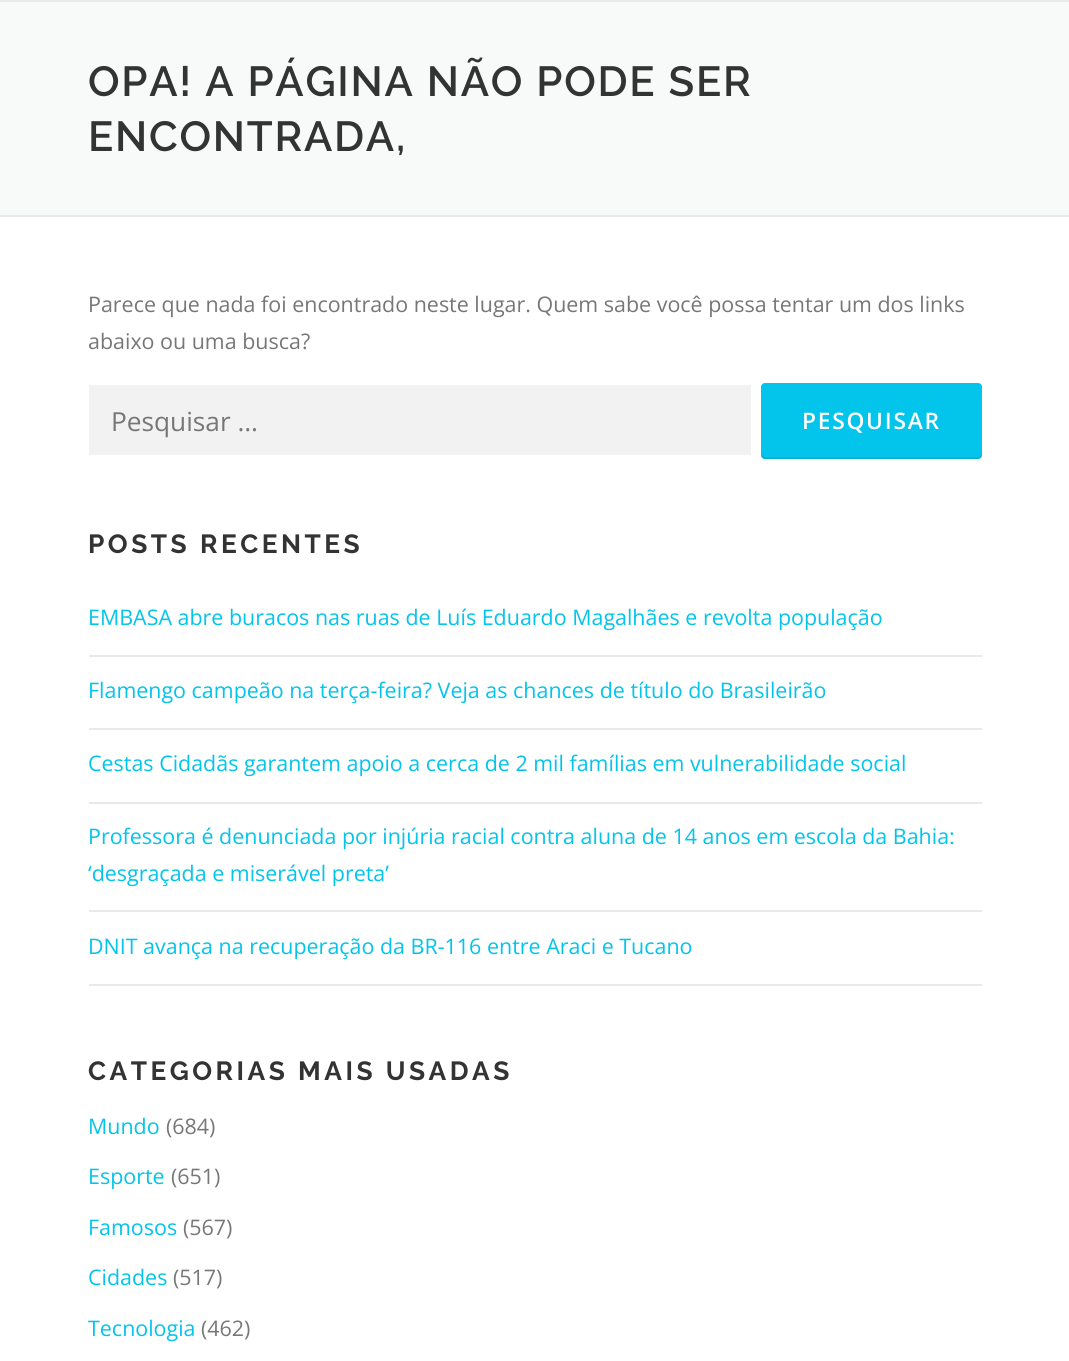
import math
import cairo



def draw_spaced(context, x, y, s, letter, word):
    context.move_to(x, y)
    for ch in s:
        context.show_text(ch)
        context.rel_move_to(letter + word * (ch == ' '), 0)


def rounded_rect(context, x, y, w, h, r):
    context.new_sub_path()
    for i, (u, v) in enumerate([(x + w - r, y + h - r), (x + r, y + h - r), (x + r, y + r), (x + w - r, y + r)]):
        context.arc(u, v, r, i * math.pi / 2, (i + 1) * math.pi / 2)
    context.close_path()


def draw(context):
    context.set_source_rgb(1, 1, 1)
    context.paint()
    context.set_source_rgb(248 / 255, 249 / 255, 249 / 255)
    context.rectangle(0, 2, 1069, 213)
    context.fill()
    context.set_source_rgb(233 / 255, 233 / 255, 233 / 255)
    context.rectangle(0, 0, 1069, 2)
    context.fill()
    context.rectangle(0, 215, 1069, 2)
    context.fill()
    context.set_source_rgb(242 / 255, 242 / 255, 242 / 255)
    context.rectangle(89, 385, 662, 70)
    context.fill()
    context.set_source_rgb(3 / 255, 196 / 255, 235 / 255)
    rounded_rect(context, 761, 383, 221, 76, 4)
    context.fill()
    context.set_source_rgba(0, 0, 0, 0.1)
    context.new_path()
    context.move_to(761, 453)
    context.curve_to(761, 456, 761, 458, 764, 459)
    context.line_to(979, 459)
    context.curve_to(982, 458, 982, 456, 982, 453)
    context.curve_to(982, 455, 980, 457, 978, 457)
    context.line_to(765, 457)
    context.curve_to(763, 457, 761, 455, 761, 453)
    context.close_path()
    context.fill()
    context.set_source_rgb(233 / 255, 233 / 255, 233 / 255)
    context.rectangle(89, 655, 893, 2)
    context.fill()
    context.rectangle(89, 728, 893, 2)
    context.fill()
    context.rectangle(89, 802, 893, 2)
    context.fill()
    context.rectangle(89, 910, 893, 2)
    context.fill()
    context.rectangle(89, 984, 893, 2)
    context.fill()
    context.select_font_face("Raleway SemiBold")
    context.set_font_size(42)
    context.set_source_rgb(51 / 255, 51 / 255, 51 / 255)
    draw_spaced(context, 88, 96, "OPA! A PÁGINA NÃO PODE SER", 1.75, 0)
    draw_spaced(context, 88, 151, "ENCONTRADA,", 1.75, 0)
    context.select_font_face("Open Sans")
    context.set_font_size(21.45)
    context.set_source_rgb(119 / 255, 119 / 255, 119 / 255)
    context.move_to(88, 312)
    context.show_text("Parece que nada foi encontrado neste lugar. Quem sabe você possa tentar um dos links")
    context.move_to(88, 349)
    context.show_text("abaixo ou uma busca?")
    context.set_font_size(26.25)
    context.move_to(111, 431)
    context.show_text("Pesquisar …")
    context.select_font_face("Open Sans SemiBold")
    context.set_font_size(22.75)
    context.set_source_rgb(1, 1, 1)
    draw_spaced(context, 802, 429, "PESQUISAR", 1.75, 0)
    context.select_font_face("Raleway", cairo.FontSlant.NORMAL, cairo.FontWeight.BOLD)
    context.set_font_size(26.25)
    context.set_source_rgb(51 / 255, 51 / 255, 51 / 255)
    draw_spaced(context, 88, 553, "POSTS RECENTES", 3.5, 0)
    context.select_font_face("Open Sans")
    context.set_font_size(21.45)
    context.set_source_rgb(3 / 255, 196 / 255, 235 / 255)
    context.move_to(88, 625)
    context.show_text("EMBASA abre buracos nas ruas de Luís Eduardo Magalhães e revolta população")
    context.move_to(88, 698)
    context.show_text("Flamengo campeão na terça-feira? Veja as chances de título do Brasileirão")
    context.move_to(88, 771)
    context.show_text("Cestas Cidadãs garantem apoio a cerca de 2 mil famílias em vulnerabilidade social")
    context.move_to(88, 844)
    context.show_text("Professora é denunciada por injúria racial contra aluna de 14 anos em escola da Bahia:")
    context.move_to(88, 881)
    context.show_text("‘desgraçada e miserável preta’")
    context.move_to(88, 954)
    context.show_text("DNIT avança na recuperação da BR-116 entre Araci e Tucano")
    context.select_font_face("Raleway", cairo.FontSlant.NORMAL, cairo.FontWeight.BOLD)
    context.set_font_size(26.25)
    context.set_source_rgb(51 / 255, 51 / 255, 51 / 255)
    draw_spaced(context, 88, 1080, "CATEGORIAS MAIS USADAS", 3.5, 0)
    context.select_font_face("Open Sans")
    context.set_font_size(21.45)
    context.set_source_rgb(3 / 255, 196 / 255, 235 / 255)
    context.move_to(88, 1134)
    context.show_text("Mundo")
    context.set_source_rgb(119 / 255, 119 / 255, 119 / 255)
    context.move_to(166, 1134)
    context.show_text("(684)")
    context.set_source_rgb(3 / 255, 196 / 255, 235 / 255)
    context.move_to(88, 1184)
    context.show_text("Esporte")
    context.set_source_rgb(119 / 255, 119 / 255, 119 / 255)
    context.move_to(171, 1184)
    context.show_text("(651)")
    context.set_source_rgb(3 / 255, 196 / 255, 235 / 255)
    context.move_to(88, 1235)
    context.show_text("Famosos")
    context.set_source_rgb(119 / 255, 119 / 255, 119 / 255)
    context.move_to(183, 1235)
    context.show_text("(567)")
    context.set_source_rgb(3 / 255, 196 / 255, 235 / 255)
    context.move_to(88, 1285)
    context.show_text("Cidades")
    context.set_source_rgb(119 / 255, 119 / 255, 119 / 255)
    context.move_to(173, 1285)
    context.show_text("(517)")
    context.set_source_rgb(3 / 255, 196 / 255, 235 / 255)
    context.move_to(88, 1336)
    context.show_text("Tecnologia")
    context.set_source_rgb(119 / 255, 119 / 255, 119 / 255)
    context.move_to(201, 1336)
    context.show_text("(462)")


surface = cairo.ImageSurface(cairo.Format.RGB24, 1069, 1361)
context = cairo.Context(surface)
options = cairo.FontOptions()
options.set_hint_metrics(cairo.HintMetrics.OFF)
options.set_hint_style(cairo.HintStyle.NONE)
context.set_font_options(options)
context.set_miter_limit(4)
draw(context)
surface.write_to_png("out.png")
